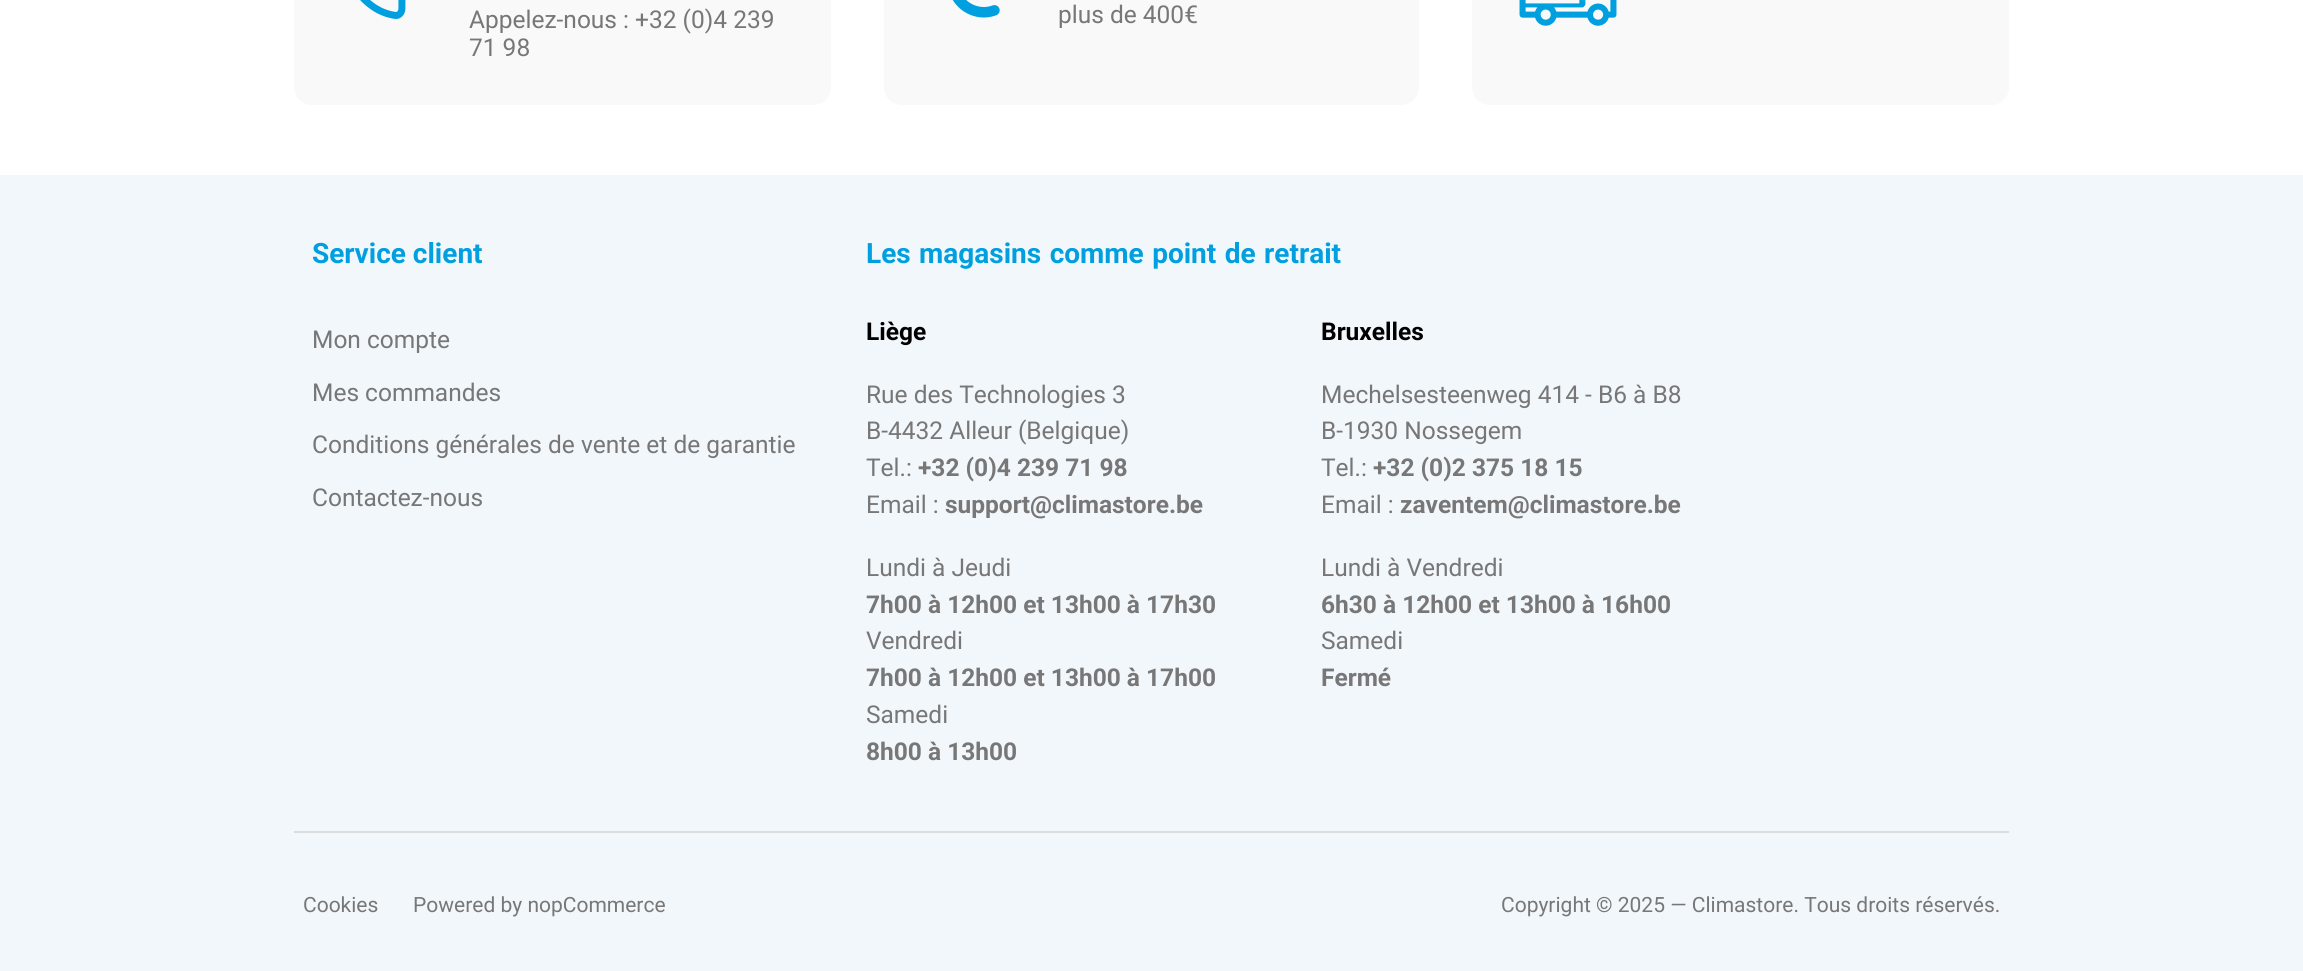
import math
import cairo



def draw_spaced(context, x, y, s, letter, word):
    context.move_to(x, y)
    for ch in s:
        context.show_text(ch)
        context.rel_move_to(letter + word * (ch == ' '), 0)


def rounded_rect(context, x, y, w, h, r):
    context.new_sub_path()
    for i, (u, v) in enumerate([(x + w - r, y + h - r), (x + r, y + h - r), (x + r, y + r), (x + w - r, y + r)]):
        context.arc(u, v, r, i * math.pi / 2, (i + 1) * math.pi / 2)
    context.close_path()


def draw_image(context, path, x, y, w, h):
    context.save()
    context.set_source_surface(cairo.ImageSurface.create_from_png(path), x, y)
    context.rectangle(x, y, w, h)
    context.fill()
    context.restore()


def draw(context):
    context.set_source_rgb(1, 1, 1)
    context.paint()
    context.set_source_rgb(249 / 255, 249 / 255, 249 / 255)
    rounded_rect(context, 294, -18, 537, 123, 18)
    context.fill()
    draw_image(context, "images/1.png", 360, 0, 46, 19)
    rounded_rect(context, 884, -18, 535, 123, 18)
    context.fill()
    draw_image(context, "images/2.png", 952, 0, 48, 18)
    rounded_rect(context, 1472, -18, 537, 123, 18)
    context.fill()
    draw_image(context, "images/3.png", 1519, 0, 98, 26)
    context.set_source_rgb(242 / 255, 247 / 255, 252 / 255)
    context.rectangle(0, 175, 2303, 796)
    context.fill()
    context.set_source_rgb(221 / 255, 221 / 255, 221 / 255)
    context.rectangle(294, 831, 1715, 2)
    context.fill()
    context.select_font_face("Roboto")
    context.set_font_size(24.5)
    context.set_source_rgb(119 / 255, 119 / 255, 119 / 255)
    context.move_to(469, 28)
    context.show_text("Appelez-nous : +32 (0)4 239")
    context.move_to(469, 56)
    context.show_text("71 98")
    context.move_to(1058, 23)
    context.show_text("plus de 400€")
    context.select_font_face("Roboto", cairo.FontSlant.NORMAL, cairo.FontWeight.BOLD)
    context.set_font_size(28)
    context.set_source_rgb(0, 159 / 255, 223 / 255)
    context.move_to(312, 263)
    context.show_text("Service client")
    context.select_font_face("Roboto")
    context.set_font_size(24.5)
    context.set_source_rgb(119 / 255, 119 / 255, 119 / 255)
    context.move_to(312, 348)
    context.show_text("Mon compte")
    context.move_to(312, 401)
    context.show_text("Mes commandes")
    context.move_to(312, 453)
    context.show_text("Conditions générales de vente et de garantie")
    context.move_to(312, 506)
    context.show_text("Contactez-nous")
    context.select_font_face("Roboto", cairo.FontSlant.NORMAL, cairo.FontWeight.BOLD)
    context.set_font_size(28)
    context.set_source_rgb(0, 159 / 255, 223 / 255)
    draw_spaced(context, 866, 263, "Les magasins comme point de retrait", 0, 1.5)
    context.set_font_size(24.5)
    context.set_source_rgb(0, 0, 0)
    context.move_to(866, 340)
    context.show_text("Liège")
    context.select_font_face("Roboto")
    context.set_source_rgb(119 / 255, 119 / 255, 119 / 255)
    context.move_to(866, 403)
    context.show_text("Rue des Technologies 3")
    context.move_to(866, 439)
    context.show_text("B-4432 Alleur (Belgique)")
    context.move_to(866, 476)
    context.show_text("Tel.:")
    context.select_font_face("Roboto", cairo.FontSlant.NORMAL, cairo.FontWeight.BOLD)
    context.move_to(918, 476)
    context.show_text("+32 (0)4 239 71 98")
    context.select_font_face("Roboto")
    context.move_to(866, 513)
    context.show_text("Email :")
    context.select_font_face("Roboto", cairo.FontSlant.NORMAL, cairo.FontWeight.BOLD)
    context.move_to(945, 513)
    context.show_text("support@climastore.be")
    context.select_font_face("Roboto")
    context.move_to(866, 576)
    context.show_text("Lundi à Jeudi")
    context.select_font_face("Roboto", cairo.FontSlant.NORMAL, cairo.FontWeight.BOLD)
    context.move_to(866, 613)
    context.show_text("7h00 à 12h00 et 13h00 à 17h30")
    context.select_font_face("Roboto")
    context.move_to(866, 649)
    context.show_text("Vendredi")
    context.select_font_face("Roboto", cairo.FontSlant.NORMAL, cairo.FontWeight.BOLD)
    context.move_to(866, 686)
    context.show_text("7h00 à 12h00 et 13h00 à 17h00")
    context.select_font_face("Roboto")
    context.move_to(866, 723)
    context.show_text("Samedi")
    context.select_font_face("Roboto", cairo.FontSlant.NORMAL, cairo.FontWeight.BOLD)
    context.move_to(866, 760)
    context.show_text("8h00 à 13h00")
    context.set_source_rgb(0, 0, 0)
    context.move_to(1321, 340)
    context.show_text("Bruxelles")
    context.select_font_face("Roboto")
    context.set_source_rgb(119 / 255, 119 / 255, 119 / 255)
    context.move_to(1321, 403)
    context.show_text("Mechelsesteenweg 414 - B6 à B8")
    context.move_to(1321, 439)
    context.show_text("B-1930 Nossegem")
    context.move_to(1321, 476)
    context.show_text("Tel.:")
    context.select_font_face("Roboto", cairo.FontSlant.NORMAL, cairo.FontWeight.BOLD)
    context.move_to(1373, 476)
    context.show_text("+32 (0)2 375 18 15")
    context.select_font_face("Roboto")
    context.move_to(1321, 513)
    context.show_text("Email :")
    context.select_font_face("Roboto", cairo.FontSlant.NORMAL, cairo.FontWeight.BOLD)
    context.move_to(1400, 513)
    context.show_text("zaventem@climastore.be")
    context.select_font_face("Roboto")
    context.move_to(1321, 576)
    context.show_text("Lundi à Vendredi")
    context.select_font_face("Roboto", cairo.FontSlant.NORMAL, cairo.FontWeight.BOLD)
    context.move_to(1321, 613)
    context.show_text("6h30 à 12h00 et 13h00 à 16h00")
    context.select_font_face("Roboto")
    context.move_to(1321, 649)
    context.show_text("Samedi")
    context.select_font_face("Roboto", cairo.FontSlant.NORMAL, cairo.FontWeight.BOLD)
    context.move_to(1321, 686)
    context.show_text("Fermé")
    context.select_font_face("Roboto")
    context.set_font_size(21)
    context.move_to(303, 912)
    context.show_text("Cookies")
    context.move_to(413, 912)
    context.show_text("Powered by nopCommerce")
    context.move_to(1501, 912)
    context.show_text("Copyright © 2025 — Climastore. Tous droits réservés.")


surface = cairo.ImageSurface(cairo.Format.RGB24, 2303, 971)
context = cairo.Context(surface)
options = cairo.FontOptions()
options.set_hint_metrics(cairo.HintMetrics.OFF)
options.set_hint_style(cairo.HintStyle.NONE)
context.set_font_options(options)
context.set_miter_limit(4)
draw(context)
surface.write_to_png("out.png")
